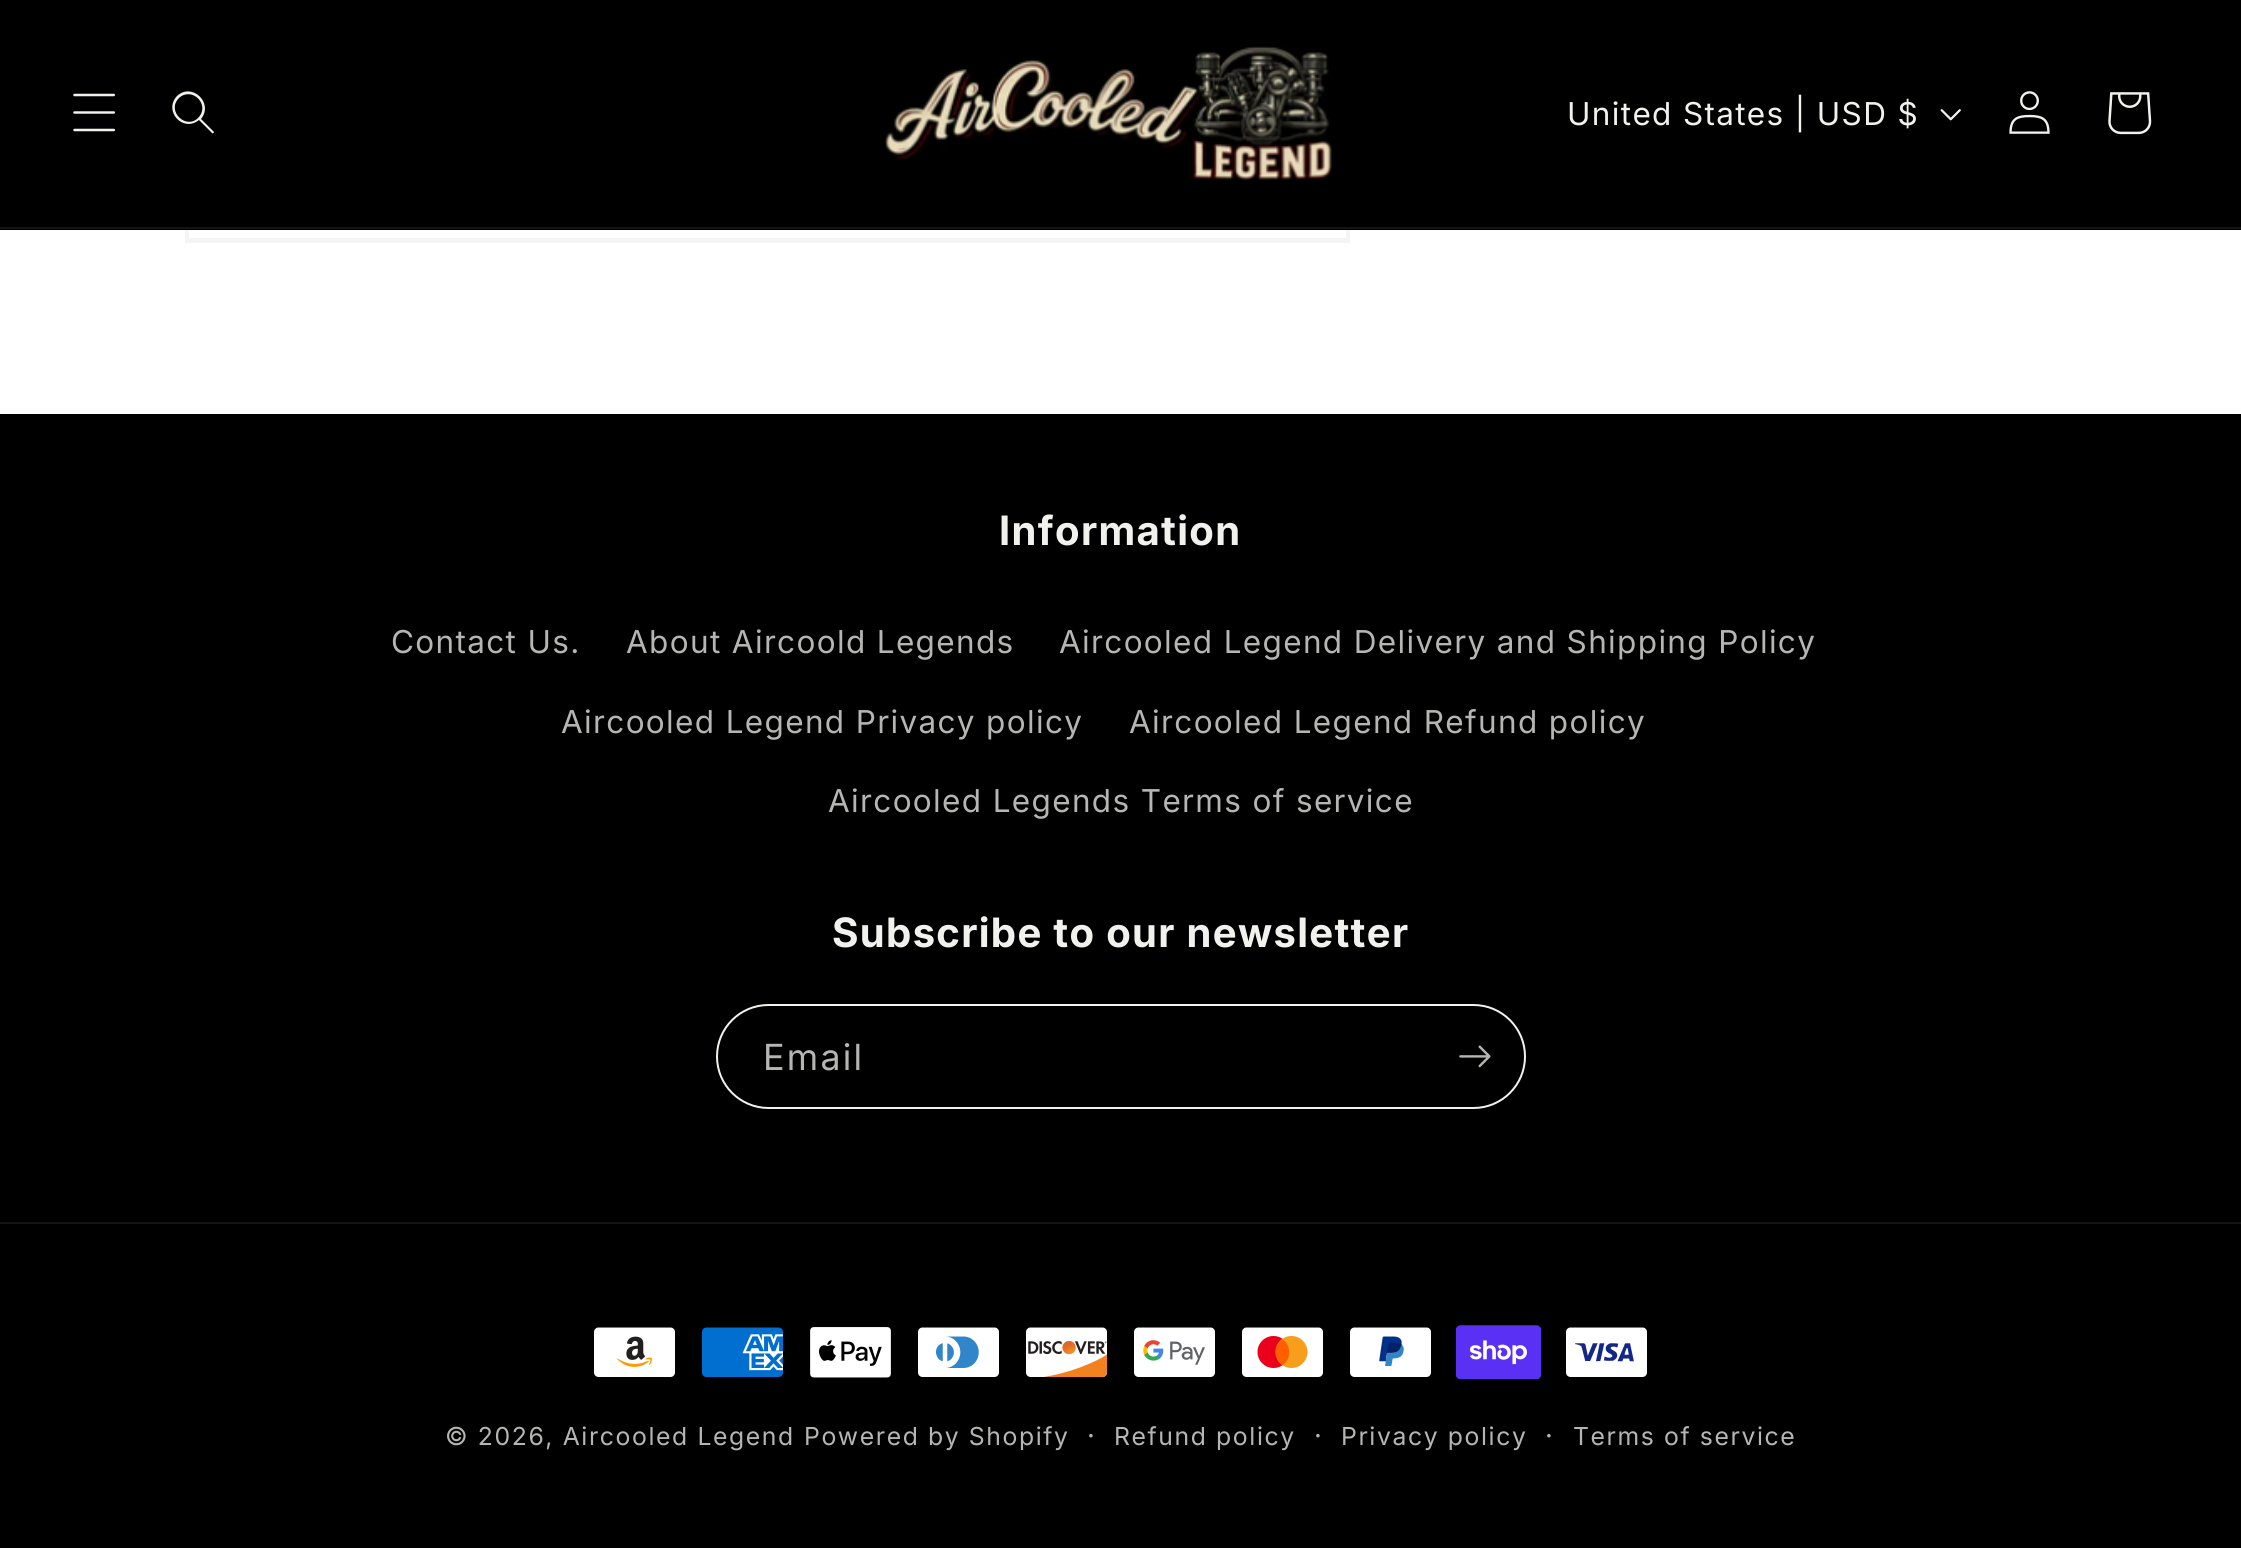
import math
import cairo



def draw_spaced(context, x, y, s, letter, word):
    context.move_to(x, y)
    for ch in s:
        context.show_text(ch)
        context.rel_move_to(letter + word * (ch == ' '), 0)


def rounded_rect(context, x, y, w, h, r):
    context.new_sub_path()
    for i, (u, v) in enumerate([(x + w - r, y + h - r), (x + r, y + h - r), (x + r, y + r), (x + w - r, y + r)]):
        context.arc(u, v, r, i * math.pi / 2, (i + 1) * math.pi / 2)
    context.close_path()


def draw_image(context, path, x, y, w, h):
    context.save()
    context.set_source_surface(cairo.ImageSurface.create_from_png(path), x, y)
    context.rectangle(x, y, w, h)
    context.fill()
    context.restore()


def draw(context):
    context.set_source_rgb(1, 1, 1)
    context.paint()
    context.rectangle(187.5, -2.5, 1160, 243)
    context.set_source_rgb(244 / 255, 244 / 255, 244 / 255)
    context.set_line_width(5)
    context.stroke()
    context.set_source_rgb(1, 1, 1)
    context.rectangle(189, 230, 1157, 8)
    context.fill()
    context.set_source_rgb(0, 0, 0)
    context.rectangle(0, 0, 2241, 230)
    context.fill()
    context.set_source_rgb(19 / 255, 19 / 255, 19 / 255)
    context.rectangle(0, 227, 2241, 2)
    context.fill()
    draw_image(context, "images/1.png", 73, 93, 42, 39)
    context.set_source_rgb(241 / 255, 241 / 255, 238 / 255)
    context.set_fill_rule(cairo.FillRule.EVEN_ODD)
    context.new_path()
    context.move_to(198, 118)
    context.curve_to(186, 130, 166, 111, 179, 98)
    context.curve_to(192, 86, 211, 105, 198, 118)
    context.move_to(199, 120)
    context.curve_to(183, 133, 163, 111, 177, 96)
    context.curve_to(192, 82, 214, 103, 201, 119)
    context.line_to(214, 132)
    context.curve_to(214, 133, 212, 134, 212, 133)
    context.close_path()
    context.fill()
    draw_image(context, "images/2.png", 884, 46, 448, 134)
    draw_image(context, "images/3.png", 1940, 109, 21, 12)
    draw_image(context, "images/4.png", 2009, 91, 41, 43)
    draw_image(context, "images/5.png", 2108, 92, 44, 43)
    context.set_source_rgb(0, 0, 0)
    context.rectangle(0, 414, 2241, 1134)
    context.fill()
    rounded_rect(context, 717, 1005, 808, 103, 51.5)
    context.set_source_rgb(241 / 255, 241 / 255, 238 / 255)
    context.set_line_width(2)
    context.stroke()
    draw_image(context, "images/6.png", 1459, 1045, 32, 23)
    context.set_source_rgb(19 / 255, 19 / 255, 19 / 255)
    context.rectangle(0, 1222, 2241, 2)
    context.fill()
    draw_image(context, "images/7.png", 594, 1327, 81, 50)
    draw_image(context, "images/8.png", 702, 1327, 81, 50)
    draw_image(context, "images/9.png", 810, 1327, 81, 51)
    draw_image(context, "images/10.png", 918, 1327, 81, 50)
    draw_image(context, "images/11.png", 1026, 1327, 82, 50)
    draw_image(context, "images/12.png", 1134, 1327, 81, 50)
    draw_image(context, "images/13.png", 1242, 1327, 81, 50)
    draw_image(context, "images/14.png", 1350, 1327, 81, 50)
    draw_image(context, "images/15.png", 1456, 1325, 85, 54)
    draw_image(context, "images/16.png", 1566, 1327, 81, 50)
    context.select_font_face("Inter")
    context.set_font_size(31.5)
    context.set_source_rgb(241 / 255, 241 / 255, 238 / 255)
    draw_spaced(context, 1567, 125, "United States | USD $", 1.35, 0)
    context.select_font_face("Inter", cairo.FontSlant.NORMAL, cairo.FontWeight.BOLD)
    context.set_font_size(40.5)
    draw_spaced(context, 999, 545, "Information", 1.35, 0)
    context.select_font_face("Inter")
    context.set_font_size(31.5)
    context.set_source_rgb(181 / 255, 181 / 255, 179 / 255)
    draw_spaced(context, 391, 653, "Contact Us.", 1.35, 0)
    draw_spaced(context, 626, 653, "About Aircoold Legends", 1.35, 0)
    draw_spaced(context, 1059, 653, "Aircooled Legend Delivery and Shipping Policy", 1.35, 0)
    draw_spaced(context, 561, 733, "Aircooled Legend Privacy policy", 1.35, 0)
    draw_spaced(context, 1129, 733, "Aircooled Legend Refund policy", 1.35, 0)
    draw_spaced(context, 828, 812, "Aircooled Legends Terms of service", 1.35, 0)
    context.select_font_face("Inter", cairo.FontSlant.NORMAL, cairo.FontWeight.BOLD)
    context.set_font_size(40.5)
    context.set_source_rgb(241 / 255, 241 / 255, 238 / 255)
    draw_spaced(context, 832, 947, "Subscribe to our newsletter", 1.35, 0)
    context.select_font_face("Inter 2")
    context.set_font_size(36)
    context.set_source_rgb(181 / 255, 181 / 255, 179 / 255)
    draw_spaced(context, 763, 1070, "Email", 2.25, 0)
    context.select_font_face("Inter")
    context.set_font_size(24.75)
    draw_spaced(context, 445, 1445, "© 2026, Aircooled Legend", 1.6, 0)
    draw_spaced(context, 804, 1445, "Powered by Shopify", 1.6, 0)
    context.set_font_size(27)
    draw_spaced(context, 1087, 1445, "·", 1.6, 0)
    context.set_font_size(24.75)
    draw_spaced(context, 1114, 1445, "Refund policy", 1.6, 0)
    context.set_font_size(27)
    draw_spaced(context, 1314, 1445, "·", 1.6, 0)
    context.set_font_size(24.75)
    draw_spaced(context, 1341, 1445, "Privacy policy", 1.6, 0)
    context.set_font_size(27)
    draw_spaced(context, 1545, 1445, "·", 1.6, 0)
    context.set_font_size(24.75)
    draw_spaced(context, 1573, 1445, "Terms of service", 1.6, 0)


surface = cairo.ImageSurface(cairo.Format.RGB24, 2241, 1548)
context = cairo.Context(surface)
options = cairo.FontOptions()
options.set_hint_metrics(cairo.HintMetrics.OFF)
options.set_hint_style(cairo.HintStyle.NONE)
context.set_font_options(options)
context.set_miter_limit(4)
draw(context)
surface.write_to_png("out.png")
